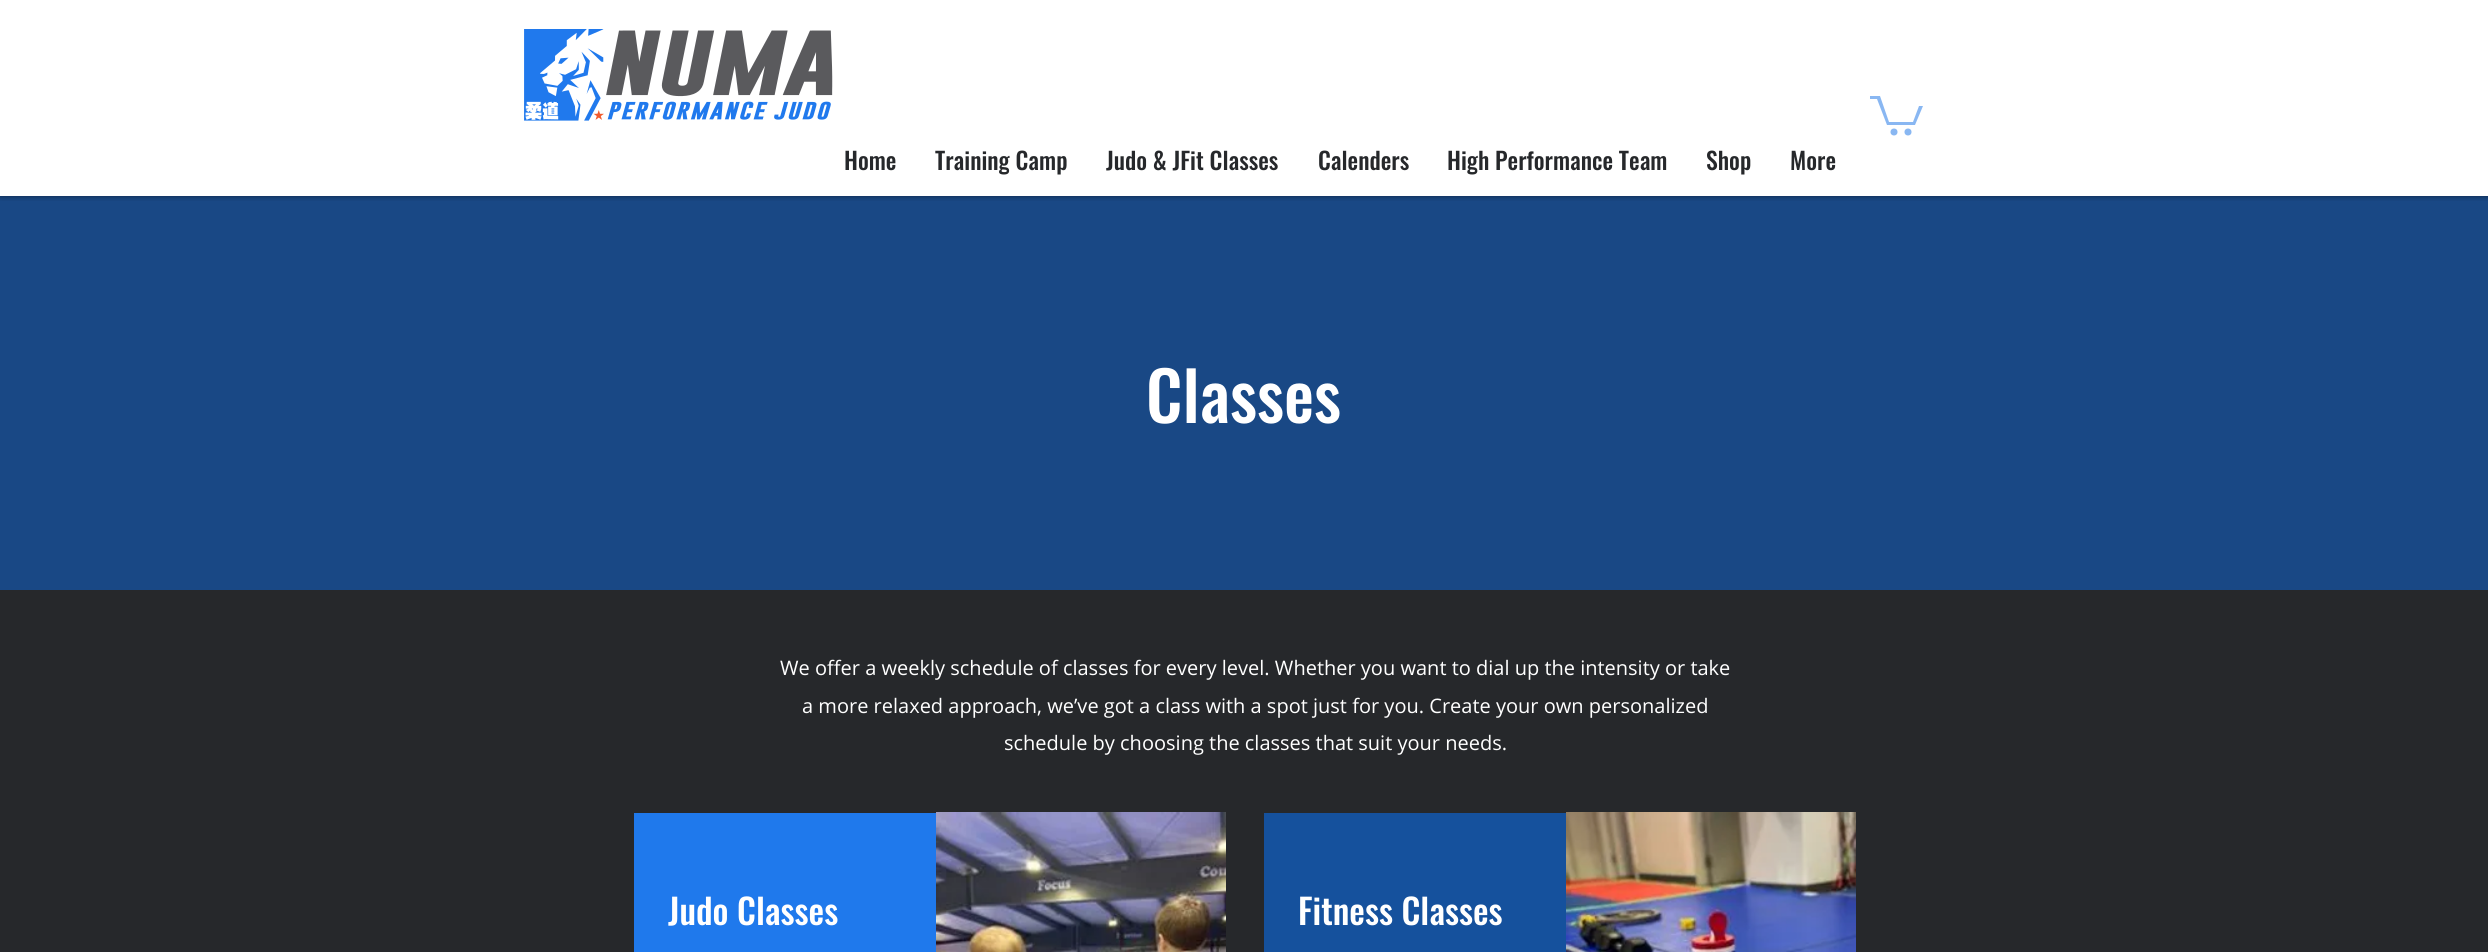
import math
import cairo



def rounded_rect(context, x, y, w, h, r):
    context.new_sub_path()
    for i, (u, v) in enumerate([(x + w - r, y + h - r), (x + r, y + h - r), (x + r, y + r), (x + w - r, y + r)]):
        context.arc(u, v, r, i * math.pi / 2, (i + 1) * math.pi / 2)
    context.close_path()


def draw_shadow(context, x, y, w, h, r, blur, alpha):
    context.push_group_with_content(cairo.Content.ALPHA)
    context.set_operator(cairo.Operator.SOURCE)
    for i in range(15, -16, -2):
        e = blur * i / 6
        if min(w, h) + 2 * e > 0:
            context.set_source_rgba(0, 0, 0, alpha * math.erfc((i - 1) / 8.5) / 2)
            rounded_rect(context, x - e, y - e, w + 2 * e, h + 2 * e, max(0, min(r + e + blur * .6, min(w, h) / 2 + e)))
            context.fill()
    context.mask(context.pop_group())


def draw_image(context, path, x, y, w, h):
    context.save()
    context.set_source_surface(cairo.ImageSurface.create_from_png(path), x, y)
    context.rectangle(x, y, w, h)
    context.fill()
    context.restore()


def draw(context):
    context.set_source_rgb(1, 1, 1)
    context.paint()
    context.set_source_rgb(25 / 255, 72 / 255, 133 / 255)
    context.rectangle(0, 196, 2488, 394)
    context.fill()
    context.save()
    context.rectangle(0, 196, 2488, 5)
    context.clip()
    context.set_source_rgb(0, 0, 0)
    draw_shadow(context, 0, 0, 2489, 196, 0, 3, 0.5)
    context.restore()
    draw_image(context, "images/1.png", 524, 29, 309, 92)
    context.set_source_rgb(137 / 255, 183 / 255, 242 / 255)
    context.new_path()
    context.move_to(1923, 106)
    context.line_to(1915, 125)
    context.line_to(1887, 125)
    context.line_to(1877, 99)
    context.line_to(1870, 99)
    context.line_to(1870, 96)
    context.line_to(1880, 96)
    context.line_to(1889, 122)
    context.line_to(1913, 122)
    context.line_to(1919, 106)
    context.fill()
    context.arc(1908, 132, 3.5, 0, 2 * math.pi)
    context.fill()
    context.arc(1894, 132, 3.5, 0, 2 * math.pi)
    context.fill()
    context.set_source_rgb(38 / 255, 40 / 255, 43 / 255)
    context.rectangle(0, 590, 2488, 362)
    context.fill()
    context.set_source_rgb(31 / 255, 121 / 255, 236 / 255)
    context.rectangle(634, 813, 302, 139)
    context.fill()
    draw_image(context, "images/2.png", 936, 812, 290, 140)
    context.set_source_rgb(21 / 255, 81 / 255, 157 / 255)
    context.rectangle(1264, 813, 302, 139)
    context.fill()
    draw_image(context, "images/3.png", 1566, 812, 290, 140)
    context.select_font_face("Oswald Medium")
    context.set_font_size(23.75)
    context.set_source_rgb(38 / 255, 40 / 255, 43 / 255)
    context.move_to(844, 170)
    context.show_text("Home")
    context.move_to(935, 170)
    context.show_text("Training Camp")
    context.move_to(1106, 170)
    context.show_text("Judo & JFit Classes")
    context.move_to(1318, 170)
    context.show_text("Calenders")
    context.move_to(1447, 170)
    context.show_text("High Performance Team")
    context.move_to(1706, 170)
    context.show_text("Shop")
    context.move_to(1790, 170)
    context.show_text("More")
    context.set_font_size(67.5)
    context.set_source_rgb(1, 1, 1)
    context.move_to(1146, 423)
    context.show_text("Classes")
    context.select_font_face("Open Sans")
    context.set_font_size(20)
    context.move_to(780, 675)
    context.show_text("We offer a weekly schedule of classes for every level. Whether you want to dial up the intensity or take")
    context.move_to(802, 713)
    context.show_text("a more relaxed approach, we’ve got a class with a spot just for you. Create your own personalized")
    context.move_to(1004, 750)
    context.show_text("schedule by choosing the classes that suit your needs.")
    context.select_font_face("Oswald Medium")
    context.set_font_size(35)
    context.move_to(668, 925)
    context.show_text("Judo Classes")
    context.move_to(1298, 925)
    context.show_text("Fitness Classes")


surface = cairo.ImageSurface(cairo.Format.RGB24, 2488, 952)
context = cairo.Context(surface)
options = cairo.FontOptions()
options.set_hint_metrics(cairo.HintMetrics.OFF)
options.set_hint_style(cairo.HintStyle.NONE)
context.set_font_options(options)
context.set_miter_limit(4)
draw(context)
surface.write_to_png("out.png")
